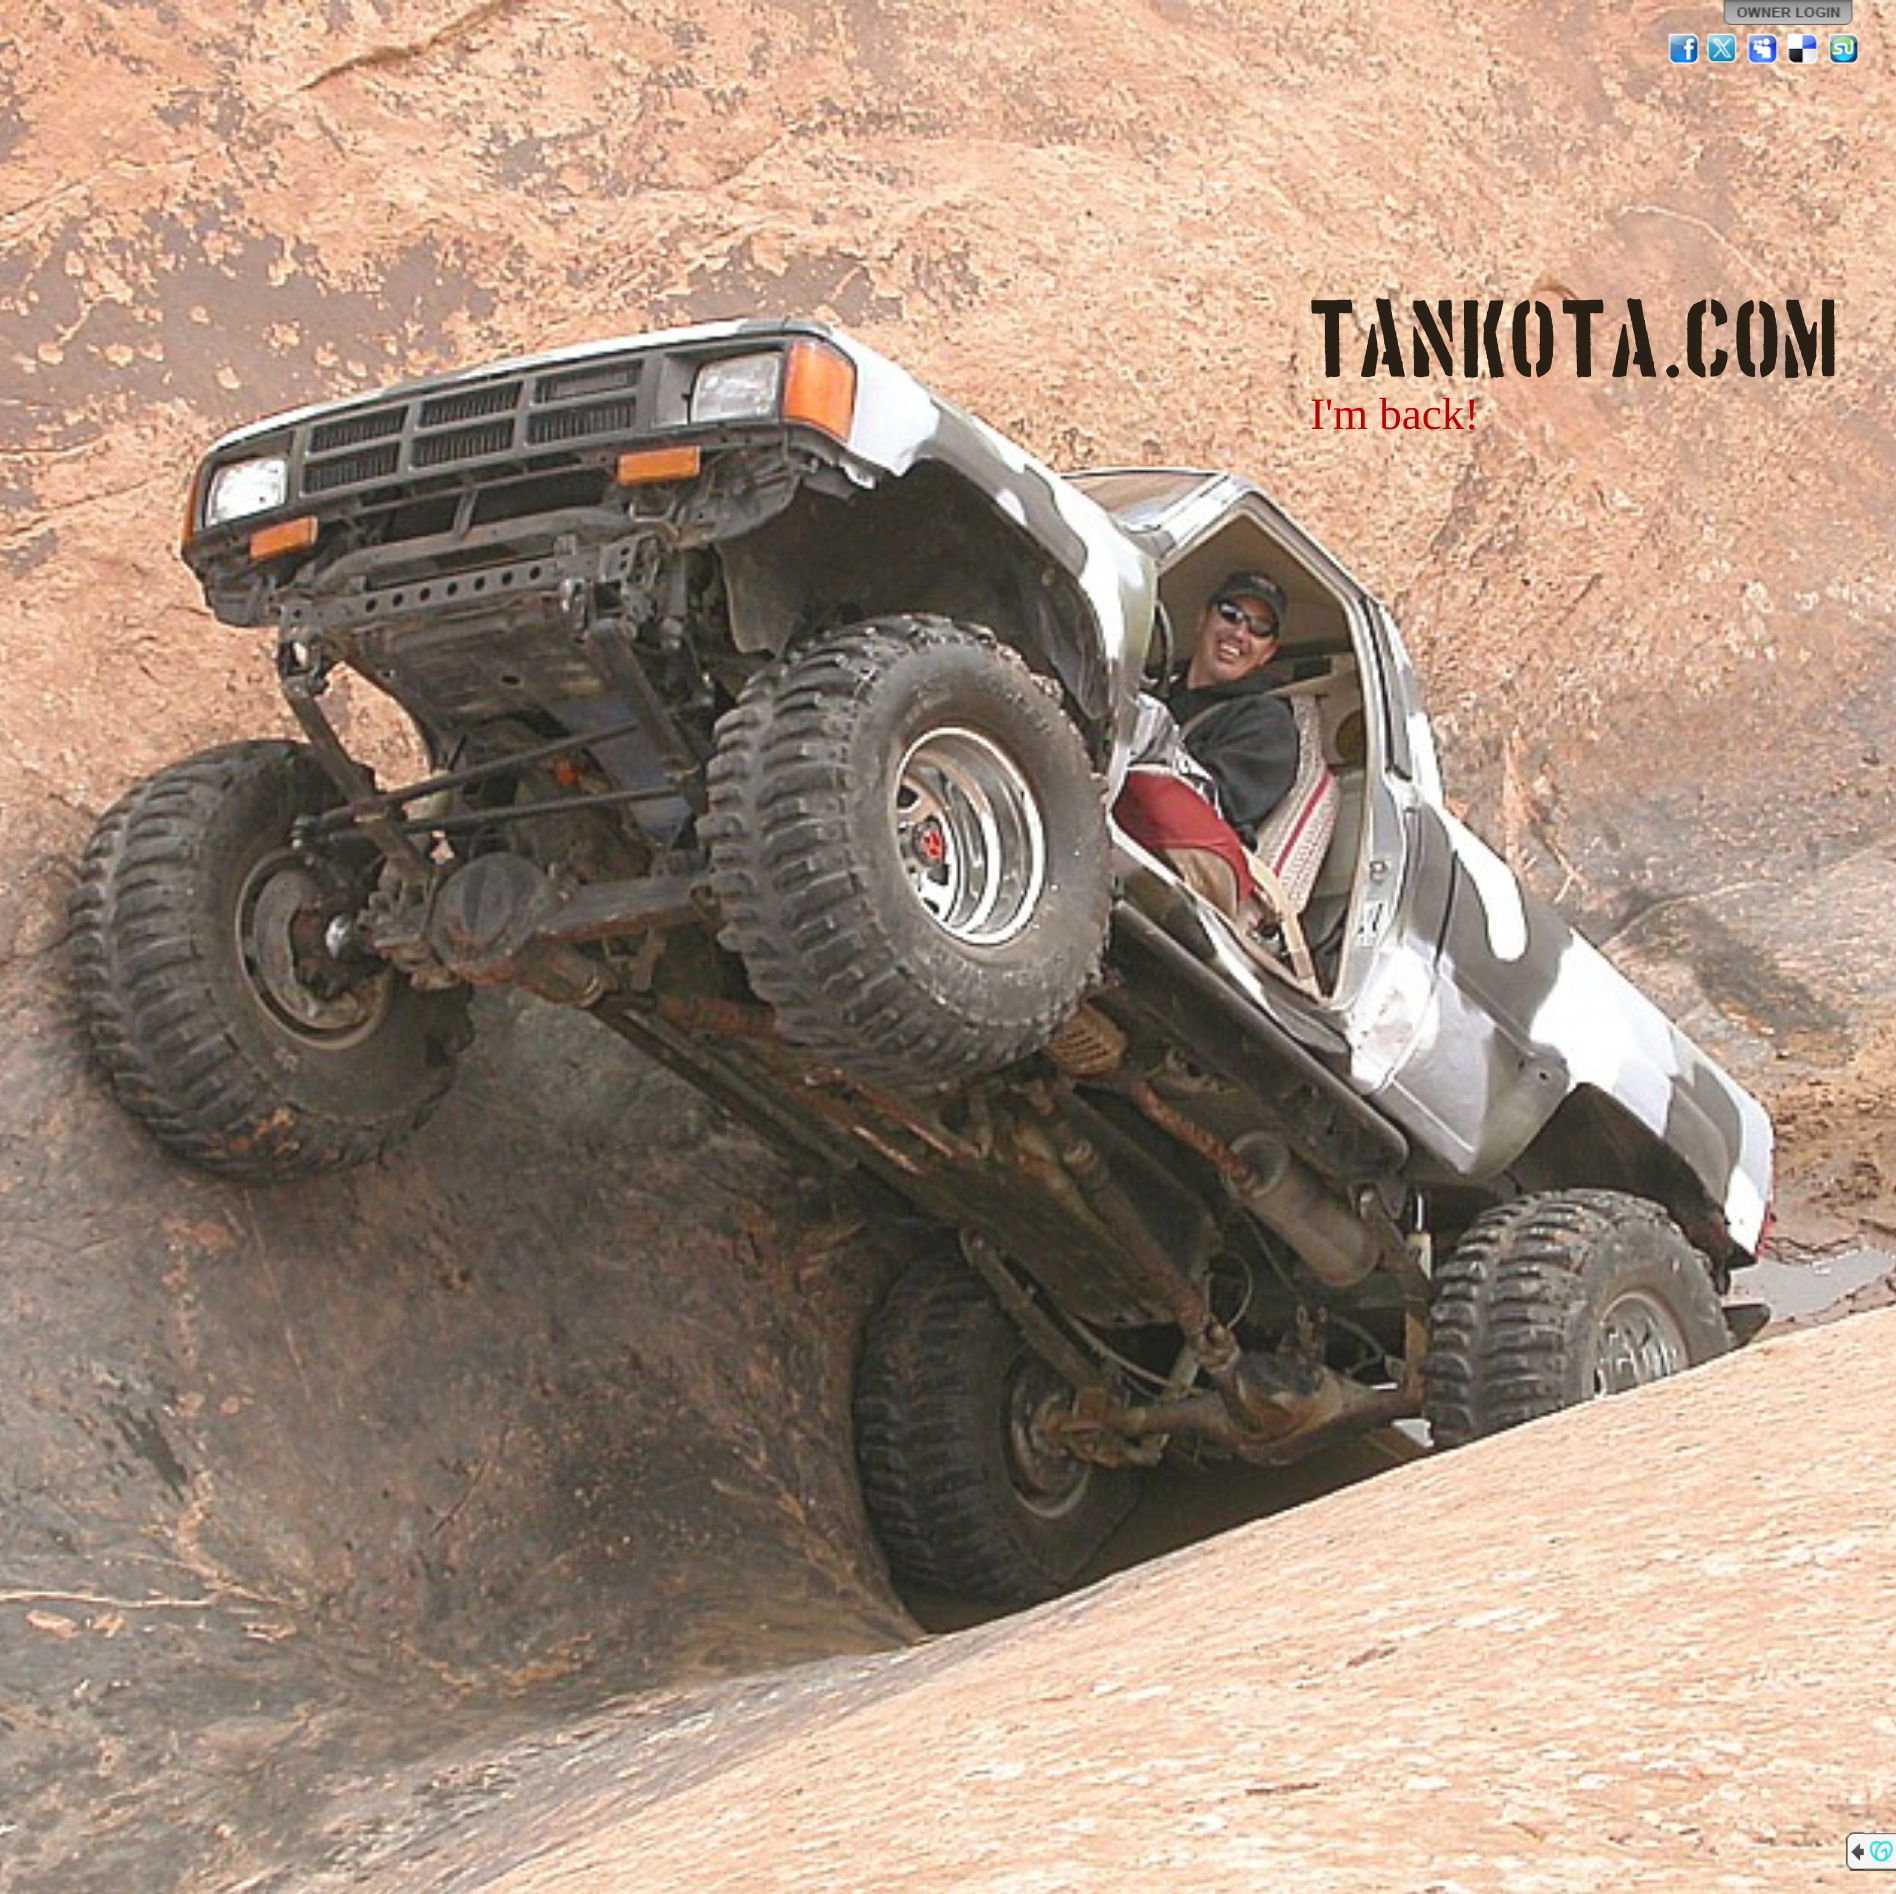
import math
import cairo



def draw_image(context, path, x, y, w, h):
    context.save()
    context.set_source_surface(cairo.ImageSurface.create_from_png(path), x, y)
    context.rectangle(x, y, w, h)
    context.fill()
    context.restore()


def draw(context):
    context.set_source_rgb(1, 1, 1)
    context.paint()
    draw_image(context, "images/1.png", 0, 0, 1896, 1894)
    draw_image(context, "images/2.png", 1723, 0, 131, 25)
    draw_image(context, "images/3.png", 1668, 33, 32, 31)
    draw_image(context, "images/4.png", 1707, 33, 30, 30)
    draw_image(context, "images/5.png", 1747, 33, 32, 31)
    draw_image(context, "images/6.png", 1787, 33, 32, 31)
    draw_image(context, "images/7.png", 1828, 33, 32, 31)
    draw_image(context, "images/8.png", 1850, 1833, 46, 38)
    draw_image(context, "images/9.png", 1850, 1869, 46, 2)
    draw_image(context, "images/10.png", 1846, 1832, 18, 38)
    draw_image(context, "images/11.png", 1869, 1840, 25, 23)
    context.select_font_face("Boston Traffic")
    context.set_font_size(87.5)
    context.set_source_rgb(40 / 255, 31 / 255, 21 / 255)
    context.move_to(1310, 377)
    context.show_text("TANKOTA.COM")
    context.select_font_face("Liberation Serif")
    context.set_font_size(45)
    context.set_source_rgb(191 / 255, 0, 0)
    context.move_to(1310, 429)
    context.show_text("I'm back!")


surface = cairo.ImageSurface(cairo.Format.RGB24, 1896, 1894)
context = cairo.Context(surface)
options = cairo.FontOptions()
options.set_hint_metrics(cairo.HintMetrics.OFF)
options.set_hint_style(cairo.HintStyle.NONE)
context.set_font_options(options)
context.set_miter_limit(4)
draw(context)
surface.write_to_png("out.png")
